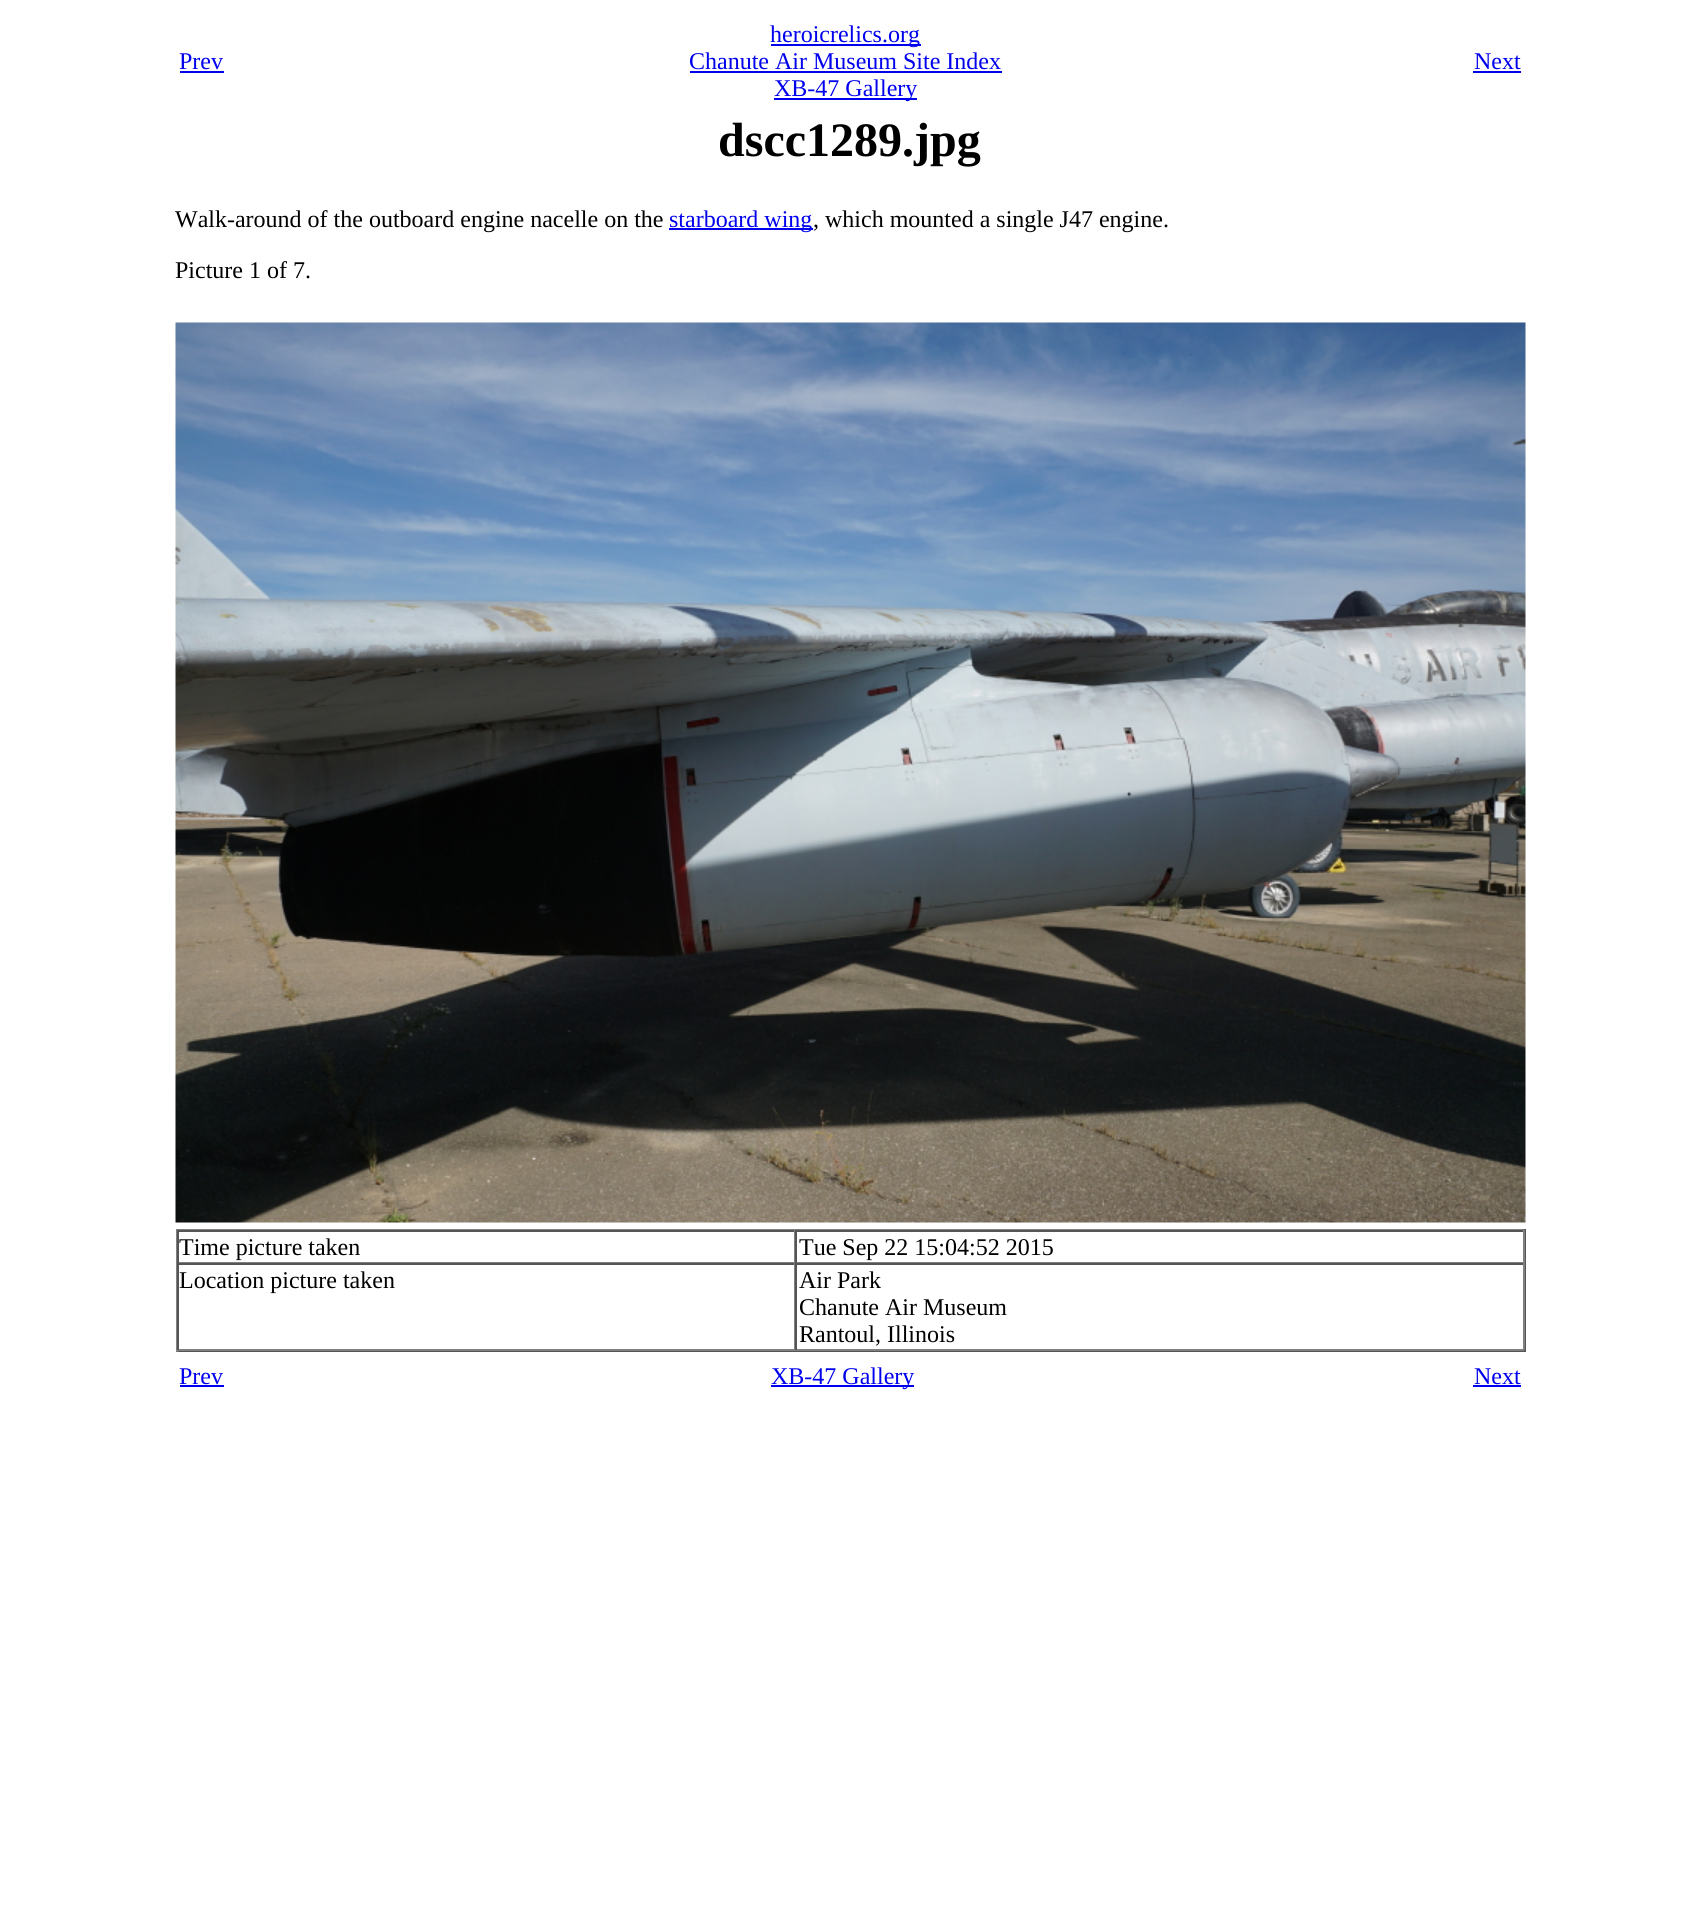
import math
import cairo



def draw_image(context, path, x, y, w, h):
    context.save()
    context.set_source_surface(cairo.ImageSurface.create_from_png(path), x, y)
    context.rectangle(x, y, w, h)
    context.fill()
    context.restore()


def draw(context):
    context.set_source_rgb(1, 1, 1)
    context.paint()
    context.set_source_rgb(0, 0, 238 / 255)
    context.rectangle(180, 71, 44, 2)
    context.fill()
    context.rectangle(771, 44, 150, 2)
    context.fill()
    context.rectangle(690, 71, 312, 2)
    context.fill()
    context.rectangle(774, 98, 143, 2)
    context.fill()
    context.rectangle(1473, 71, 48, 2)
    context.fill()
    context.rectangle(669, 228, 144, 2)
    context.fill()
    draw_image(context, "images/1.png", 175, 322, 1351, 901)
    context.set_source_rgb(128 / 255, 128 / 255, 128 / 255)
    context.rectangle(176, 1229, 1350, 1)
    context.fill()
    context.set_source_rgb(85 / 255, 85 / 255, 85 / 255)
    context.rectangle(1524, 1229, 2, 123)
    context.fill()
    context.rectangle(176, 1350, 1350, 2)
    context.fill()
    context.set_source_rgb(128 / 255, 128 / 255, 128 / 255)
    context.rectangle(176, 1229, 2, 123)
    context.fill()
    context.set_source_rgb(85 / 255, 85 / 255, 85 / 255)
    context.rectangle(177, 1230, 1347, 2)
    context.fill()
    context.set_source_rgb(128 / 255, 128 / 255, 128 / 255)
    context.rectangle(794, 1230, 1, 33)
    context.fill()
    context.rectangle(177, 1262, 618, 1)
    context.fill()
    context.set_source_rgb(85 / 255, 85 / 255, 85 / 255)
    context.rectangle(177, 1230, 2, 33)
    context.fill()
    context.set_source_rgb(128 / 255, 128 / 255, 128 / 255)
    context.rectangle(1523, 1230, 2, 33)
    context.fill()
    context.rectangle(795, 1262, 729, 1)
    context.fill()
    context.set_source_rgb(85 / 255, 85 / 255, 85 / 255)
    context.rectangle(795, 1230, 2, 33)
    context.fill()
    context.rectangle(177, 1263, 1347, 2)
    context.fill()
    context.set_source_rgb(128 / 255, 128 / 255, 128 / 255)
    context.rectangle(794, 1263, 1, 87)
    context.fill()
    context.rectangle(177, 1349, 618, 2)
    context.fill()
    context.set_source_rgb(85 / 255, 85 / 255, 85 / 255)
    context.rectangle(177, 1263, 2, 87)
    context.fill()
    context.set_source_rgb(128 / 255, 128 / 255, 128 / 255)
    context.rectangle(1523, 1263, 2, 87)
    context.fill()
    context.rectangle(795, 1349, 729, 2)
    context.fill()
    context.set_source_rgb(85 / 255, 85 / 255, 85 / 255)
    context.rectangle(795, 1263, 2, 87)
    context.fill()
    context.set_source_rgb(0, 0, 238 / 255)
    context.rectangle(180, 1385, 44, 2)
    context.fill()
    context.rectangle(771, 1385, 143, 2)
    context.fill()
    context.rectangle(1473, 1385, 48, 2)
    context.fill()
    context.select_font_face("Liberation Serif")
    context.set_font_size(24)
    context.move_to(179, 69)
    context.show_text("Prev")
    context.move_to(770, 42)
    context.show_text("heroicrelics.org")
    context.move_to(689, 69)
    context.show_text("Chanute Air Museum Site Index")
    context.move_to(774, 96)
    context.show_text("XB-47 Gallery")
    context.move_to(1474, 69)
    context.show_text("Next")
    context.select_font_face("Liberation Serif", cairo.FontSlant.NORMAL, cairo.FontWeight.BOLD)
    context.set_font_size(48)
    context.set_source_rgb(0, 0, 0)
    context.move_to(718, 156)
    context.show_text("dscc1289.jpg")
    context.select_font_face("Liberation Serif")
    context.set_font_size(24)
    context.move_to(175, 227)
    context.show_text("Walk-around of the outboard engine nacelle on the")
    context.set_source_rgb(0, 0, 238 / 255)
    context.move_to(669, 227)
    context.show_text("starboard wing")
    context.set_source_rgb(0, 0, 0)
    context.move_to(813, 227)
    context.show_text(", which mounted a single J47 engine.")
    context.move_to(175, 278)
    context.show_text("Picture 1 of 7.")
    context.move_to(179, 1255)
    context.show_text("Time picture taken")
    context.move_to(799, 1255)
    context.show_text("Tue Sep 22 15:04:52 2015")
    context.move_to(179, 1288)
    context.show_text("Location picture taken")
    context.move_to(799, 1288)
    context.show_text("Air Park")
    context.move_to(799, 1315)
    context.show_text("Chanute Air Museum")
    context.move_to(799, 1342)
    context.show_text("Rantoul, Illinois")
    context.set_source_rgb(0, 0, 238 / 255)
    context.move_to(179, 1384)
    context.show_text("Prev")
    context.move_to(771, 1384)
    context.show_text("XB-47 Gallery")
    context.move_to(1474, 1384)
    context.show_text("Next")


surface = cairo.ImageSurface(cairo.Format.RGB24, 1699, 1925)
context = cairo.Context(surface)
options = cairo.FontOptions()
options.set_hint_metrics(cairo.HintMetrics.OFF)
options.set_hint_style(cairo.HintStyle.NONE)
context.set_font_options(options)
context.set_miter_limit(4)
draw(context)
surface.write_to_png("out.png")
